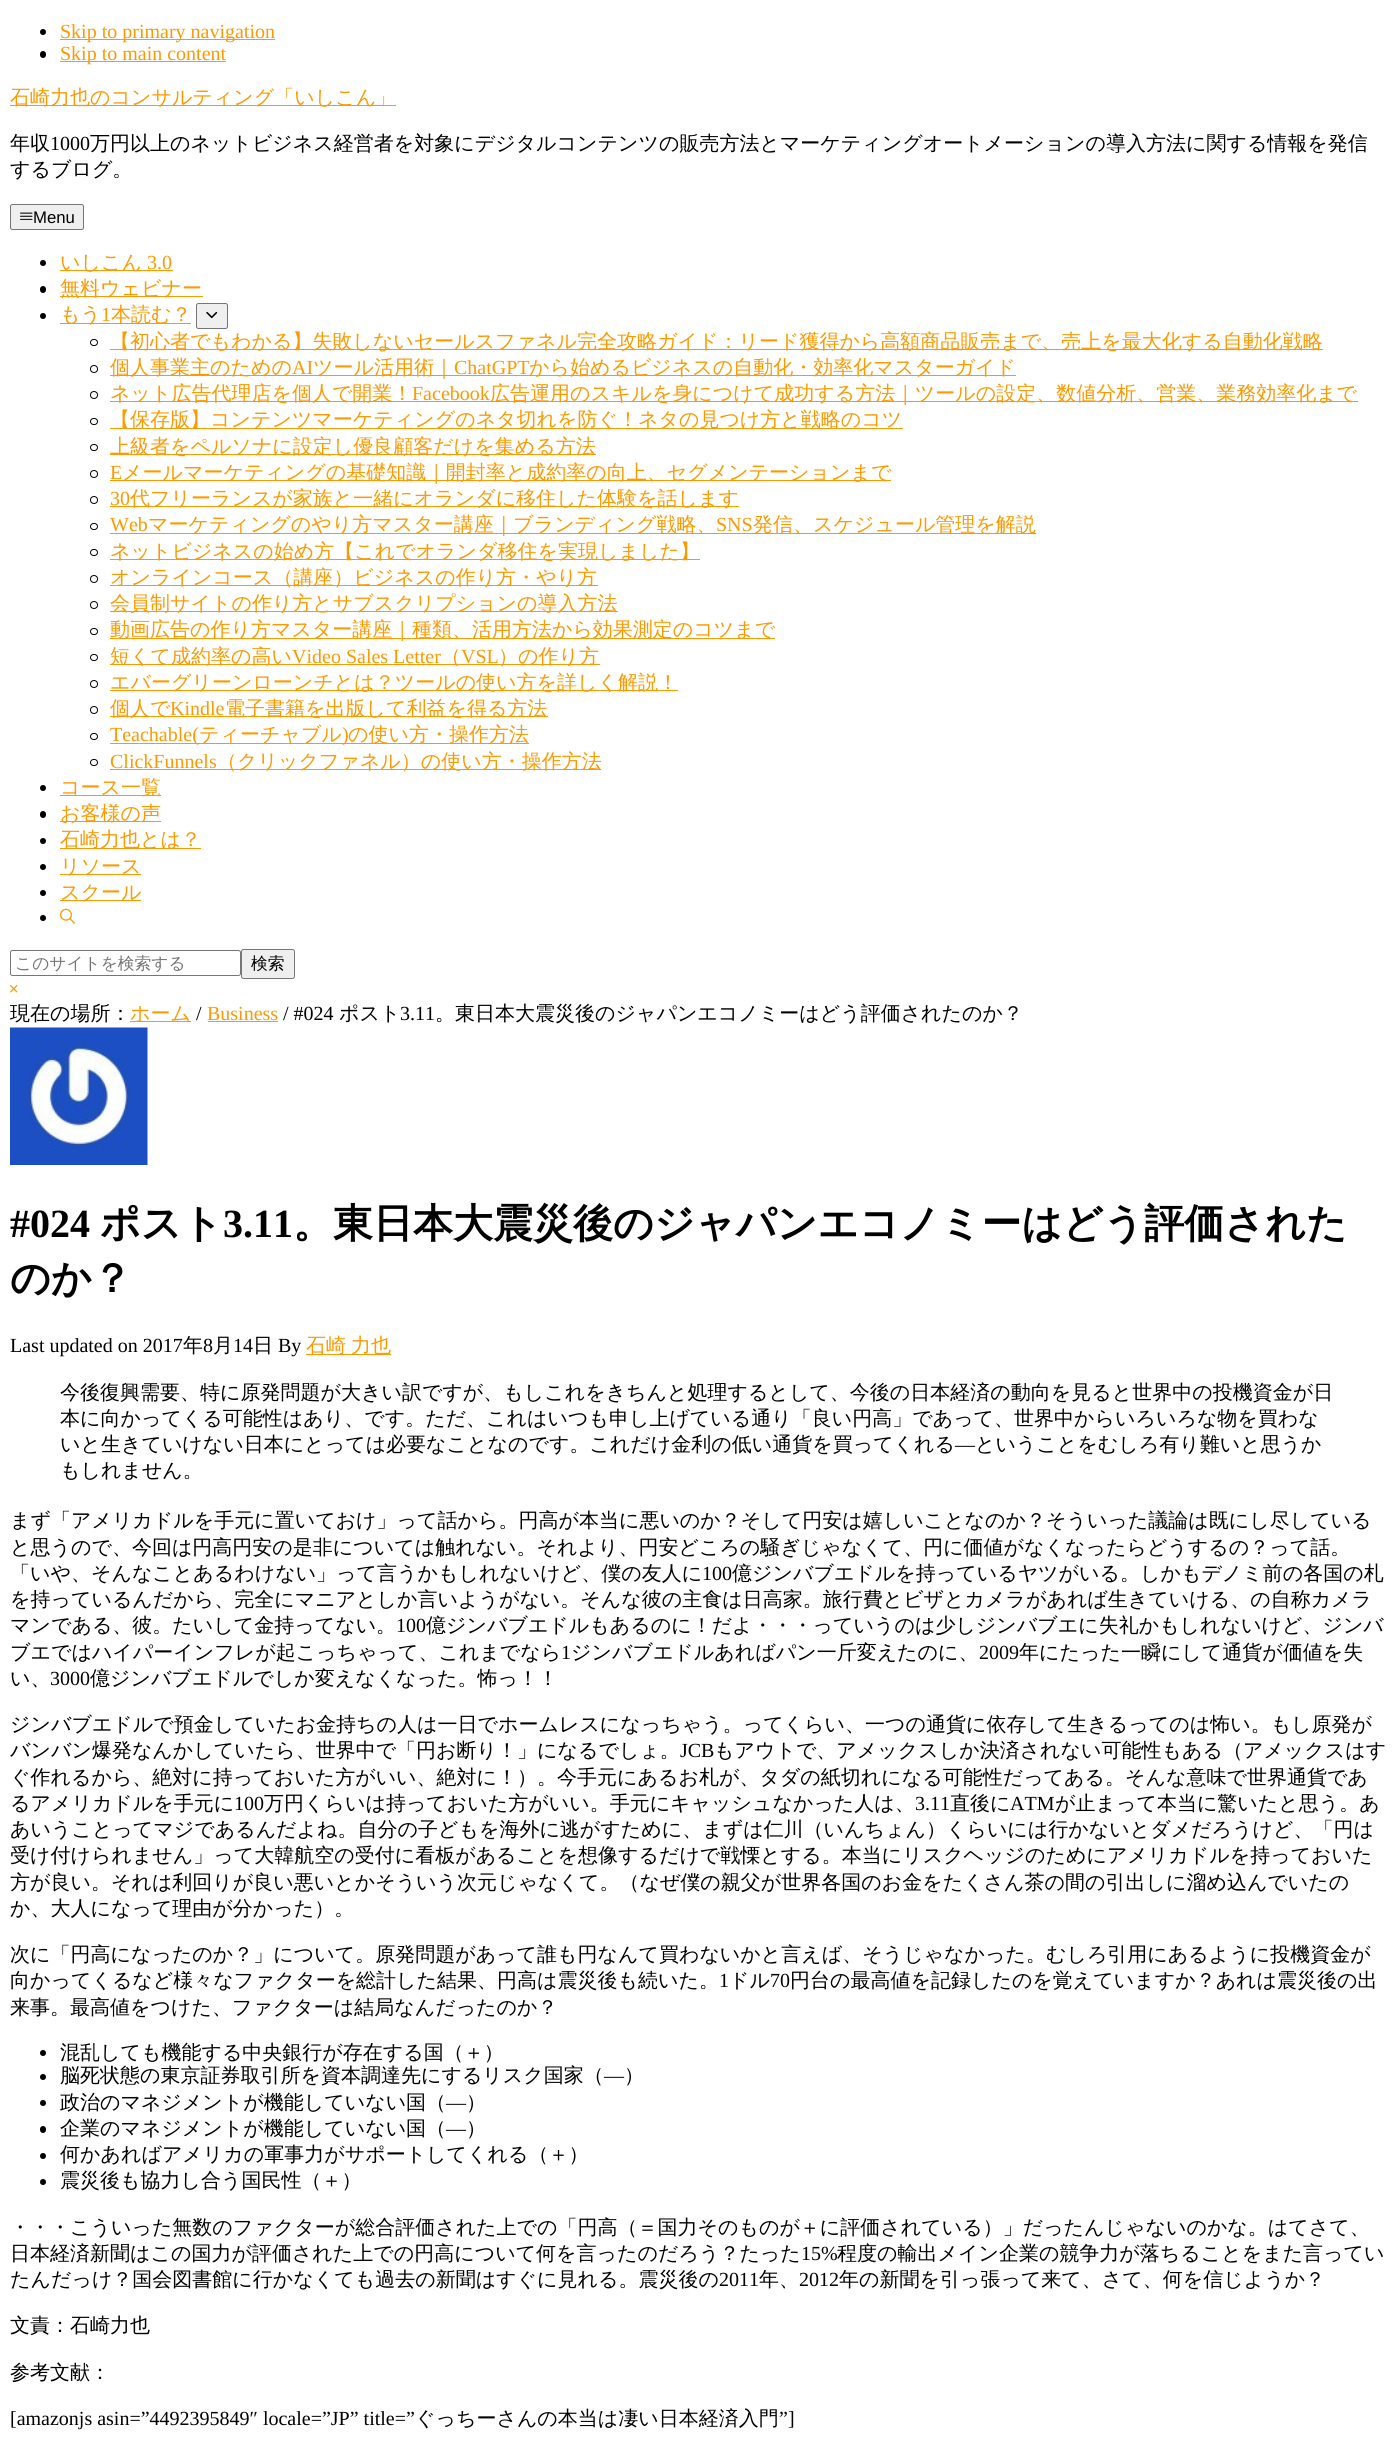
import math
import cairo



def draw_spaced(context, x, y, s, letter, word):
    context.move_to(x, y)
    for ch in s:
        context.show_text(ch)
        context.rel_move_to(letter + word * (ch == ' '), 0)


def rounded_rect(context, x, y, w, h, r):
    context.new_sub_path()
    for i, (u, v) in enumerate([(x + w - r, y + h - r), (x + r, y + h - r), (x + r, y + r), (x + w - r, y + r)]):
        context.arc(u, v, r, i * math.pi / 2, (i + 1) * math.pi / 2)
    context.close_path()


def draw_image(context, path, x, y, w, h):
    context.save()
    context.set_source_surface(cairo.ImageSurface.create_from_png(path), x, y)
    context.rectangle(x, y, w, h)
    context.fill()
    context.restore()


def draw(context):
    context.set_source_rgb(1, 1, 1)
    context.paint()
    context.set_source_rgb(0, 0, 0)
    context.arc(43, 32, 3, 0, 2 * math.pi)
    context.fill()
    context.set_source_rgb(1, 153 / 255, 0)
    context.rectangle(60, 39, 215, 1)
    context.fill()
    context.set_source_rgb(0, 0, 0)
    rounded_rect(context, 40, 51, 6, 7, 3)
    context.fill()
    context.set_source_rgb(1, 153 / 255, 0)
    context.rectangle(60, 61, 166, 1)
    context.fill()
    context.rectangle(10, 105, 386, 1)
    context.fill()
    context.set_source_rgb(239 / 255, 239 / 255, 239 / 255)
    rounded_rect(context, 10.5, 204.5, 73, 25, 2)
    context.fill_preserve()
    context.set_source_rgb(118 / 255, 118 / 255, 118 / 255)
    context.set_line_width(1)
    context.stroke()
    draw_image(context, "images/1.png", 20, 212, 13, 8)
    context.set_source_rgb(0, 0, 0)
    context.arc(43, 263, 3, 0, 2 * math.pi)
    context.fill()
    context.set_source_rgb(1, 153 / 255, 0)
    context.rectangle(60, 270, 113, 1)
    context.fill()
    context.set_source_rgb(0, 0, 0)
    rounded_rect(context, 40, 286, 6, 7, 3)
    context.fill()
    context.set_source_rgb(1, 153 / 255, 0)
    context.rectangle(60, 296, 143, 1)
    context.fill()
    context.set_source_rgb(0, 0, 0)
    context.arc(43, 316, 3, 0, 2 * math.pi)
    context.fill()
    context.set_source_rgb(1, 153 / 255, 0)
    context.rectangle(60, 323, 131, 1)
    context.fill()
    context.set_source_rgb(239 / 255, 239 / 255, 239 / 255)
    rounded_rect(context, 196.5, 303.5, 31, 25, 2)
    context.fill_preserve()
    context.set_source_rgb(118 / 255, 118 / 255, 118 / 255)
    context.stroke()
    draw_image(context, "images/2.png", 206, 311, 12, 8)
    rounded_rect(context, 90.5, 339.5, 7, 6, 3)
    context.set_source_rgb(0, 0, 0)
    context.stroke()
    context.set_source_rgb(1, 153 / 255, 0)
    context.rectangle(110, 349, 1213, 1)
    context.fill()
    context.arc(94, 369, 3.5, 0, 2 * math.pi)
    context.set_source_rgb(0, 0, 0)
    context.stroke()
    context.set_source_rgb(1, 153 / 255, 0)
    context.rectangle(110, 375, 906, 1)
    context.fill()
    context.arc(94, 395, 3.5, 0, 2 * math.pi)
    context.set_source_rgb(0, 0, 0)
    context.stroke()
    context.set_source_rgb(1, 153 / 255, 0)
    context.rectangle(110, 401, 1248, 1)
    context.fill()
    rounded_rect(context, 90.5, 418.5, 7, 6, 3)
    context.set_source_rgb(0, 0, 0)
    context.stroke()
    context.set_source_rgb(1, 153 / 255, 0)
    context.rectangle(110, 428, 793, 1)
    context.fill()
    rounded_rect(context, 90.5, 444.5, 7, 6, 3)
    context.set_source_rgb(0, 0, 0)
    context.stroke()
    context.set_source_rgb(1, 153 / 255, 0)
    context.rectangle(110, 454, 486, 1)
    context.fill()
    context.arc(94, 474, 3.5, 0, 2 * math.pi)
    context.set_source_rgb(0, 0, 0)
    context.stroke()
    context.set_source_rgb(1, 153 / 255, 0)
    context.rectangle(110, 480, 781, 1)
    context.fill()
    context.arc(94, 500, 3.5, 0, 2 * math.pi)
    context.set_source_rgb(0, 0, 0)
    context.stroke()
    context.set_source_rgb(1, 153 / 255, 0)
    context.rectangle(110, 506, 629, 1)
    context.fill()
    rounded_rect(context, 90.5, 523.5, 7, 6, 3)
    context.set_source_rgb(0, 0, 0)
    context.stroke()
    context.set_source_rgb(1, 153 / 255, 0)
    context.rectangle(110, 533, 926, 1)
    context.fill()
    rounded_rect(context, 90.5, 549.5, 7, 6, 3)
    context.set_source_rgb(0, 0, 0)
    context.stroke()
    context.set_source_rgb(1, 153 / 255, 0)
    context.rectangle(110, 559, 590, 1)
    context.fill()
    context.arc(94, 579, 3.5, 0, 2 * math.pi)
    context.set_source_rgb(0, 0, 0)
    context.stroke()
    context.set_source_rgb(1, 153 / 255, 0)
    context.rectangle(110, 585, 488, 1)
    context.fill()
    context.arc(94, 605, 3.5, 0, 2 * math.pi)
    context.set_source_rgb(0, 0, 0)
    context.stroke()
    context.set_source_rgb(1, 153 / 255, 0)
    context.rectangle(110, 611, 508, 1)
    context.fill()
    rounded_rect(context, 90.5, 628.5, 7, 6, 3)
    context.set_source_rgb(0, 0, 0)
    context.stroke()
    context.set_source_rgb(1, 153 / 255, 0)
    context.rectangle(110, 638, 665, 1)
    context.fill()
    rounded_rect(context, 90.5, 654.5, 7, 6, 3)
    context.set_source_rgb(0, 0, 0)
    context.stroke()
    context.set_source_rgb(1, 153 / 255, 0)
    context.rectangle(110, 664, 490, 1)
    context.fill()
    context.arc(94, 684, 3.5, 0, 2 * math.pi)
    context.set_source_rgb(0, 0, 0)
    context.stroke()
    context.set_source_rgb(1, 153 / 255, 0)
    context.rectangle(110, 690, 568, 1)
    context.fill()
    context.arc(94, 710, 3.5, 0, 2 * math.pi)
    context.set_source_rgb(0, 0, 0)
    context.stroke()
    context.set_source_rgb(1, 153 / 255, 0)
    context.rectangle(110, 716, 438, 1)
    context.fill()
    rounded_rect(context, 90.5, 733.5, 7, 6, 3)
    context.set_source_rgb(0, 0, 0)
    context.stroke()
    context.set_source_rgb(1, 153 / 255, 0)
    context.rectangle(110, 743, 419, 1)
    context.fill()
    rounded_rect(context, 90.5, 759.5, 7, 6, 3)
    context.set_source_rgb(0, 0, 0)
    context.stroke()
    context.set_source_rgb(1, 153 / 255, 0)
    context.rectangle(110, 769, 491, 1)
    context.fill()
    context.set_source_rgb(0, 0, 0)
    context.arc(43, 788, 3, 0, 2 * math.pi)
    context.fill()
    context.set_source_rgb(1, 153 / 255, 0)
    context.rectangle(60, 795, 101, 1)
    context.fill()
    context.set_source_rgb(0, 0, 0)
    rounded_rect(context, 40, 811, 6, 7, 3)
    context.fill()
    context.set_source_rgb(1, 153 / 255, 0)
    context.rectangle(60, 821, 101, 1)
    context.fill()
    context.set_source_rgb(0, 0, 0)
    context.arc(43, 841, 3, 0, 2 * math.pi)
    context.fill()
    context.set_source_rgb(1, 153 / 255, 0)
    context.rectangle(60, 848, 141, 1)
    context.fill()
    context.set_source_rgb(0, 0, 0)
    context.arc(43, 867, 3, 0, 2 * math.pi)
    context.fill()
    context.set_source_rgb(1, 153 / 255, 0)
    context.rectangle(60, 874, 81, 1)
    context.fill()
    context.set_source_rgb(0, 0, 0)
    context.arc(43, 893, 3, 0, 2 * math.pi)
    context.fill()
    context.set_source_rgb(1, 153 / 255, 0)
    context.rectangle(60, 900, 81, 1)
    context.fill()
    context.set_source_rgb(0, 0, 0)
    context.arc(43, 918, 3, 0, 2 * math.pi)
    context.fill()
    draw_image(context, "images/3.png", 60, 908, 15, 16)
    rounded_rect(context, 10.5, 950.5, 230, 25, 2)
    context.set_source_rgb(118 / 255, 118 / 255, 118 / 255)
    context.stroke()
    context.set_source_rgb(239 / 255, 239 / 255, 239 / 255)
    rounded_rect(context, 241.5, 949.5, 53, 29, 2)
    context.fill_preserve()
    context.set_source_rgb(118 / 255, 118 / 255, 118 / 255)
    context.stroke()
    draw_image(context, "images/4.png", 10, 985, 8, 8)
    context.set_source_rgb(1, 153 / 255, 0)
    context.rectangle(130, 1021, 61, 1)
    context.fill()
    context.rectangle(208, 1021, 70, 1)
    context.fill()
    draw_image(context, "images/5.png", 10, 1027, 138, 138)
    context.rectangle(306, 1354, 85, 1)
    context.fill()
    context.set_source_rgb(0, 0, 0)
    context.arc(43, 2053, 3, 0, 2 * math.pi)
    context.fill()
    context.arc(43, 2077, 3, 0, 2 * math.pi)
    context.fill()
    context.arc(43, 2103, 3, 0, 2 * math.pi)
    context.fill()
    rounded_rect(context, 40, 2126, 6, 7, 3)
    context.fill()
    context.arc(43, 2156, 3, 0, 2 * math.pi)
    context.fill()
    context.arc(43, 2182, 3, 0, 2 * math.pi)
    context.fill()
    context.select_font_face("Liberation Serif")
    context.set_font_size(20)
    context.set_source_rgb(1, 153 / 255, 0)
    context.move_to(60, 38)
    context.show_text("Skip to primary navigation")
    context.move_to(60, 60)
    context.show_text("Skip to main content")
    context.select_font_face("WenQuanYi Zen Hei Medium")
    context.move_to(10, 104)
    context.show_text("石崎力也のコンサルティング「いしこん」")
    context.set_source_rgb(0, 0, 0)
    context.move_to(10, 150)
    context.show_text("年収")
    context.select_font_face("Liberation Serif")
    context.move_to(50, 150)
    context.show_text("1000")
    context.select_font_face("WenQuanYi Zen Hei Medium")
    context.move_to(90, 150)
    context.show_text("万円以上のネットビジネス経営者を対象にデジタルコンテンツの販売方法とマーケティングオートメーションの導入方法に関する情報を発信")
    context.move_to(10, 176)
    context.show_text("するブログ。")
    context.select_font_face("Liberation Sans")
    context.set_font_size(16.75)
    context.move_to(33, 223)
    context.show_text("Menu")
    context.select_font_face("WenQuanYi Zen Hei Medium")
    context.set_font_size(20)
    context.set_source_rgb(1, 153 / 255, 0)
    context.move_to(60, 269)
    context.show_text("いしこん")
    context.select_font_face("Liberation Serif")
    context.move_to(147, 269)
    context.show_text("3.0")
    context.select_font_face("WenQuanYi Zen Hei Medium")
    context.move_to(60, 295)
    context.show_text("無料ウェビナー")
    context.move_to(60, 321)
    context.show_text("もう")
    context.select_font_face("Liberation Serif")
    context.move_to(101, 321)
    context.show_text("1")
    context.select_font_face("WenQuanYi Zen Hei Medium")
    context.move_to(111, 321)
    context.show_text("本読む？")
    context.move_to(110, 348)
    context.show_text("【初心者でもわかる】失敗しないセールスファネル完全攻略ガイド：リード獲得から高額商品販売まで、売上を最大化する自動化戦略")
    context.move_to(110, 374)
    context.show_text("個人事業主のための")
    context.select_font_face("Liberation Serif")
    context.move_to(292, 374)
    context.show_text("AI")
    context.select_font_face("WenQuanYi Zen Hei Medium")
    context.move_to(313, 374)
    context.show_text("ツール活用術｜")
    context.select_font_face("Liberation Serif")
    context.move_to(454, 374)
    context.show_text("ChatGPT")
    context.select_font_face("WenQuanYi Zen Hei Medium")
    context.move_to(529, 374)
    context.show_text("から始めるビジネスの自動化・効率化マスターガイド")
    context.move_to(110, 400)
    context.show_text("ネット広告代理店を個人で開業！")
    context.select_font_face("Liberation Serif")
    context.move_to(412, 400)
    context.show_text("Facebook")
    context.select_font_face("WenQuanYi Zen Hei Medium")
    context.move_to(490, 400)
    context.show_text("広告運用のスキルを身につけて成功する方法｜ツールの設定、数値分析、営業、業務効率化まで")
    context.move_to(110, 426)
    context.show_text("【保存版】コンテンツマーケティングのネタ切れを防ぐ！ネタの見つけ方と戦略のコツ")
    context.move_to(110, 453)
    context.show_text("上級者をペルソナに設定し優良顧客だけを集める方法")
    context.select_font_face("Liberation Serif")
    context.move_to(110, 479)
    context.show_text("E")
    context.select_font_face("WenQuanYi Zen Hei Medium")
    context.move_to(122, 479)
    context.show_text("メールマーケティングの基礎知識｜開封率と成約率の向上、セグメンテーションまで")
    context.select_font_face("Liberation Serif")
    context.move_to(110, 505)
    context.show_text("30")
    context.select_font_face("WenQuanYi Zen Hei Medium")
    context.move_to(130, 505)
    context.show_text("代フリーランスが家族と一緒にオランダに移住した体験を話します")
    context.select_font_face("Liberation Serif")
    context.move_to(110, 531)
    context.show_text("Web")
    context.select_font_face("WenQuanYi Zen Hei Medium")
    context.move_to(148, 531)
    context.show_text("マーケティングのやり方マスター講座｜ブランディング戦略、")
    context.select_font_face("Liberation Serif")
    context.move_to(716, 531)
    context.show_text("SNS")
    context.select_font_face("WenQuanYi Zen Hei Medium")
    context.move_to(753, 531)
    context.show_text("発信、スケジュール管理を解説")
    context.move_to(110, 558)
    context.show_text("ネットビジネスの始め方【これでオランダ移住を実現しました】")
    context.move_to(110, 584)
    context.show_text("オンラインコース（講座）ビジネスの作り方・やり方")
    context.move_to(110, 610)
    context.show_text("会員制サイトの作り方とサブスクリプションの導入方法")
    context.move_to(110, 636)
    context.show_text("動画広告の作り方マスター講座｜種類、活用方法から効果測定のコツまで")
    context.move_to(110, 663)
    context.show_text("短くて成約率の高い")
    context.select_font_face("Liberation Serif")
    context.move_to(292, 663)
    context.show_text("Video Sales Letter")
    context.select_font_face("WenQuanYi Zen Hei Medium")
    context.move_to(441, 663)
    context.show_text("（")
    context.select_font_face("Liberation Serif")
    context.move_to(461, 663)
    context.show_text("VSL")
    context.select_font_face("WenQuanYi Zen Hei Medium")
    context.move_to(498, 663)
    context.show_text("）の作り方")
    context.move_to(110, 689)
    context.show_text("エバーグリーンローンチとは？ツールの使い方を詳しく解説！")
    context.move_to(110, 715)
    context.show_text("個人で")
    context.select_font_face("Liberation Serif")
    context.move_to(170, 715)
    context.show_text("Kindle")
    context.select_font_face("WenQuanYi Zen Hei Medium")
    context.move_to(225, 715)
    context.show_text("電子書籍を出版して利益を得る方法")
    context.select_font_face("Liberation Serif")
    context.move_to(110, 741)
    context.show_text("Teachable(")
    context.select_font_face("WenQuanYi Zen Hei Medium")
    context.move_to(199, 741)
    context.show_text("ティーチャブル")
    context.select_font_face("Liberation Serif")
    context.move_to(342, 741)
    context.show_text(")")
    context.select_font_face("WenQuanYi Zen Hei Medium")
    context.move_to(348, 741)
    context.show_text("の使い方・操作方法")
    context.select_font_face("Liberation Serif")
    context.move_to(110, 768)
    context.show_text("ClickFunnels")
    context.select_font_face("WenQuanYi Zen Hei Medium")
    context.move_to(217, 768)
    context.show_text("（クリックファネル）の使い方・操作方法")
    context.move_to(60, 794)
    context.show_text("コース一覧")
    context.move_to(60, 820)
    context.show_text("お客様の声")
    context.move_to(60, 846)
    context.show_text("石崎力也とは？")
    context.move_to(60, 873)
    context.show_text("リソース")
    context.move_to(60, 899)
    context.show_text("スクール")
    context.set_font_size(16.75)
    context.set_source_rgb(117 / 255, 117 / 255, 117 / 255)
    context.move_to(15, 969)
    context.show_text("このサイトを検索する")
    context.set_source_rgb(0, 0, 0)
    context.move_to(251, 969)
    context.show_text("検索")
    context.set_font_size(20)
    context.move_to(10, 1020)
    context.show_text("現在の場所：")
    context.set_source_rgb(1, 153 / 255, 0)
    context.move_to(130, 1020)
    context.show_text("ホーム")
    context.select_font_face("Liberation Serif")
    context.set_source_rgb(0, 0, 0)
    context.move_to(196, 1020)
    context.show_text("/")
    context.set_source_rgb(1, 153 / 255, 0)
    context.move_to(207, 1020)
    context.show_text("Business")
    context.set_source_rgb(0, 0, 0)
    context.move_to(283, 1020)
    context.show_text("/ #024")
    context.select_font_face("WenQuanYi Zen Hei Medium")
    context.move_to(339, 1020)
    context.show_text("ポスト")
    context.select_font_face("Liberation Serif")
    context.move_to(400, 1020)
    context.show_text("3.11")
    context.select_font_face("WenQuanYi Zen Hei Medium")
    context.move_to(435, 1020)
    context.show_text("。東日本大震災後のジャパンエコノミーはどう評価されたのか？")
    context.select_font_face("Liberation Serif", cairo.FontSlant.NORMAL, cairo.FontWeight.BOLD)
    context.set_font_size(40)
    context.move_to(10, 1237)
    context.show_text("#024")
    context.select_font_face("WenQuanYi Zen Hei", cairo.FontSlant.NORMAL, cairo.FontWeight.BOLD)
    context.move_to(100, 1237)
    context.show_text("ポスト")
    context.select_font_face("Liberation Serif", cairo.FontSlant.NORMAL, cairo.FontWeight.BOLD)
    context.move_to(223, 1237)
    context.show_text("3.11")
    context.select_font_face("WenQuanYi Zen Hei", cairo.FontSlant.NORMAL, cairo.FontWeight.BOLD)
    context.move_to(293, 1237)
    context.show_text("。東日本大震災後のジャパンエコノミーはどう評価された")
    context.move_to(10, 1292)
    context.show_text("のか？")
    context.select_font_face("Liberation Serif")
    context.set_font_size(20)
    context.move_to(10, 1352)
    context.show_text("Last updated on 2017")
    context.select_font_face("WenQuanYi Zen Hei Medium")
    context.move_to(183, 1352)
    context.show_text("年")
    context.select_font_face("Liberation Serif")
    context.move_to(203, 1352)
    context.show_text("8")
    context.select_font_face("WenQuanYi Zen Hei Medium")
    context.move_to(213, 1352)
    context.show_text("月")
    context.select_font_face("Liberation Serif")
    context.move_to(233, 1352)
    context.show_text("14")
    context.select_font_face("WenQuanYi Zen Hei Medium")
    context.move_to(253, 1352)
    context.show_text("日")
    context.select_font_face("Liberation Serif")
    context.move_to(278, 1352)
    context.show_text("By")
    context.select_font_face("WenQuanYi Zen Hei Medium")
    context.set_source_rgb(1, 153 / 255, 0)
    draw_spaced(context, 306, 1352, "石崎 力也", 0, -1)
    context.set_source_rgb(0, 0, 0)
    context.move_to(60, 1399)
    context.show_text("今後復興需要、特に原発問題が大きい訳ですが、もしこれをきちんと処理するとして、今後の日本経済の動向を見ると世界中の投機資金が日")
    context.move_to(60, 1425)
    context.show_text("本に向かってくる可能性はあり、です。ただ、これはいつも申し上げている通り「良い円高」であって、世界中からいろいろな物を買わな")
    context.move_to(60, 1451)
    context.show_text("いと生きていけない日本にとっては必要なことなのです。これだけ金利の低い通貨を買ってくれる")
    context.select_font_face("Liberation Serif")
    context.move_to(955, 1451)
    context.show_text("—")
    context.select_font_face("WenQuanYi Zen Hei Medium")
    context.move_to(975, 1451)
    context.show_text("ということをむしろ有り難いと思うか")
    context.move_to(60, 1477)
    context.show_text("もしれません。")
    context.move_to(10, 1527)
    context.show_text("まず「アメリカドルを手元に置いておけ」って話から。円高が本当に悪いのか？そして円安は嬉しいことなのか？そういった議論は既にし尽している")
    context.move_to(10, 1554)
    context.show_text("と思うので、今回は円高円安の是非については触れない。それより、円安どころの騒ぎじゃなくて、円に価値がなくなったらどうするの？って話。")
    context.move_to(10, 1580)
    context.show_text("「いや、そんなことあるわけない」って言うかもしれないけど、僕の友人に")
    context.select_font_face("Liberation Serif")
    context.move_to(702, 1580)
    context.show_text("100")
    context.select_font_face("WenQuanYi Zen Hei Medium")
    context.move_to(732, 1580)
    context.show_text("億ジンバブエドルを持っているヤツがいる。しかもデノミ前の各国の札")
    context.move_to(10, 1606)
    context.show_text("を持っているんだから、完全にマニアとしか言いようがない。そんな彼の主食は日高家。旅行費とビザとカメラがあれば生きていける、の自称カメラ")
    context.move_to(10, 1632)
    context.show_text("マンである、彼。たいして金持ってない。")
    context.select_font_face("Liberation Serif")
    context.move_to(396, 1632)
    context.show_text("100")
    context.select_font_face("WenQuanYi Zen Hei Medium")
    context.move_to(426, 1632)
    context.show_text("億ジンバブエドルもあるのに！だよ・・・っていうのは少しジンバブエに失礼かもしれないけど、ジンバ")
    context.move_to(10, 1659)
    context.show_text("ブエではハイパーインフレが起こっちゃって、これまでなら")
    context.select_font_face("Liberation Serif")
    context.move_to(561, 1659)
    context.show_text("1")
    context.select_font_face("WenQuanYi Zen Hei Medium")
    context.move_to(571, 1659)
    context.show_text("ジンバブエドルあればパン一斤変えたのに、")
    context.select_font_face("Liberation Serif")
    context.move_to(979, 1659)
    context.show_text("2009")
    context.select_font_face("WenQuanYi Zen Hei Medium")
    context.move_to(1019, 1659)
    context.show_text("年にたった一瞬にして通貨が価値を失")
    context.move_to(10, 1685)
    context.show_text("い、")
    context.select_font_face("Liberation Serif")
    context.move_to(50, 1685)
    context.show_text("3000")
    context.select_font_face("WenQuanYi Zen Hei Medium")
    context.move_to(90, 1685)
    context.show_text("億ジンバブエドルでしか変えなくなった。怖っ！！")
    context.move_to(10, 1731)
    context.show_text("ジンバブエドルで預金していたお金持ちの人は一日でホームレスになっちゃう。ってくらい、一つの通貨に依存して生きるってのは怖い。もし原発が")
    context.move_to(10, 1757)
    context.show_text("バンバン爆発なんかしていたら、世界中で「円お断り！」になるでしょ。")
    context.select_font_face("Liberation Serif")
    context.move_to(680, 1757)
    context.show_text("JCB")
    context.select_font_face("WenQuanYi Zen Hei Medium")
    context.move_to(714, 1757)
    context.show_text("もアウトで、アメックスしか決済されない可能性もある（アメックスはす")
    context.move_to(10, 1784)
    context.show_text("ぐ作れるから、絶対に持っておいた方がいい、絶対に！）。今手元にあるお札が、タダの紙切れになる可能性だってある。そんな意味で世界通貨であ")
    context.move_to(10, 1810)
    context.show_text("るアメリカドルを手元に")
    context.select_font_face("Liberation Serif")
    context.move_to(234, 1810)
    context.show_text("100")
    context.select_font_face("WenQuanYi Zen Hei Medium")
    context.move_to(264, 1810)
    context.show_text("万円くらいは持っておいた方がいい。手元にキャッシュなかった人は、")
    context.select_font_face("Liberation Serif")
    context.move_to(915, 1810)
    context.show_text("3.11")
    context.select_font_face("WenQuanYi Zen Hei Medium")
    context.move_to(950, 1810)
    context.show_text("直後に")
    context.select_font_face("Liberation Serif")
    context.move_to(1010, 1810)
    context.show_text("ATM")
    context.select_font_face("WenQuanYi Zen Hei Medium")
    context.move_to(1055, 1810)
    context.show_text("が止まって本当に驚いたと思う。あ")
    context.move_to(10, 1836)
    context.show_text("あいうことってマジであるんだよね。自分の子どもを海外に逃がすために、まずは仁川（いんちょん）くらいには行かないとダメだろうけど、「円は")
    context.move_to(10, 1862)
    context.show_text("受け付けられません」って大韓航空の受付に看板があることを想像するだけで戦慄とする。本当にリスクヘッジのためにアメリカドルを持っておいた")
    context.move_to(10, 1889)
    context.show_text("方が良い。それは利回りが良い悪いとかそういう次元じゃなくて。（なぜ僕の親父が世界各国のお金をたくさん茶の間の引出しに溜め込んでいたの")
    context.move_to(10, 1915)
    context.show_text("か、大人になって理由が分かった）。")
    context.move_to(10, 1961)
    context.show_text("次に「円高になったのか？」について。原発問題があって誰も円なんて買わないかと言えば、そうじゃなかった。むしろ引用にあるように投機資金が")
    context.move_to(10, 1987)
    context.show_text("向かってくるなど様々なファクターを総計した結果、円高は震災後も続いた。")
    context.select_font_face("Liberation Serif")
    context.move_to(719, 1987)
    context.show_text("1")
    context.select_font_face("WenQuanYi Zen Hei Medium")
    context.move_to(729, 1987)
    context.show_text("ドル")
    context.select_font_face("Liberation Serif")
    context.move_to(770, 1987)
    context.show_text("70")
    context.select_font_face("WenQuanYi Zen Hei Medium")
    context.move_to(790, 1987)
    context.show_text("円台の最高値を記録したのを覚えていますか？あれは震災後の出")
    context.move_to(10, 2014)
    context.show_text("来事。最高値をつけた、ファクターは結局なんだったのか？")
    context.move_to(60, 2059)
    context.show_text("混乱しても機能する中央銀行が存在する国（＋）")
    context.move_to(60, 2082)
    context.show_text("脳死状態の東京証券取引所を資本調達先にするリスク国家（")
    context.select_font_face("Liberation Serif")
    context.move_to(604, 2082)
    context.show_text("—")
    context.select_font_face("WenQuanYi Zen Hei Medium")
    context.move_to(624, 2082)
    context.show_text("）")
    context.move_to(60, 2109)
    context.show_text("政治のマネジメントが機能していない国（")
    context.select_font_face("Liberation Serif")
    context.move_to(446, 2109)
    context.show_text("—")
    context.select_font_face("WenQuanYi Zen Hei Medium")
    context.move_to(466, 2109)
    context.show_text("）")
    context.move_to(60, 2135)
    context.show_text("企業のマネジメントが機能していない国（")
    context.select_font_face("Liberation Serif")
    context.move_to(446, 2135)
    context.show_text("—")
    context.select_font_face("WenQuanYi Zen Hei Medium")
    context.move_to(466, 2135)
    context.show_text("）")
    context.move_to(60, 2161)
    context.show_text("何かあればアメリカの軍事力がサポートしてくれる（＋）")
    context.move_to(60, 2187)
    context.show_text("震災後も協力し合う国民性（＋）")
    context.move_to(10, 2234)
    context.show_text("・・・こういった無数のファクターが総合評価された上での「円高（＝国力そのものが＋に評価されている）」だったんじゃないのかな。はてさて、")
    context.move_to(10, 2260)
    context.show_text("日本経済新聞はこの国力が評価された上での円高について何を言ったのだろう？たった")
    context.select_font_face("Liberation Serif")
    context.move_to(801, 2260)
    context.show_text("15%")
    context.select_font_face("WenQuanYi Zen Hei Medium")
    context.move_to(837, 2260)
    context.show_text("程度の輸出メイン企業の競争力が落ちることをまた言ってい")
    context.move_to(10, 2286)
    context.show_text("たんだっけ？国会図書館に行かなくても過去の新聞はすぐに見れる。震災後の")
    context.select_font_face("Liberation Serif")
    context.move_to(719, 2286)
    context.show_text("2011")
    context.select_font_face("WenQuanYi Zen Hei Medium")
    context.move_to(759, 2286)
    context.show_text("年、")
    context.select_font_face("Liberation Serif")
    context.move_to(799, 2286)
    context.show_text("2012")
    context.select_font_face("WenQuanYi Zen Hei Medium")
    context.move_to(839, 2286)
    context.show_text("年の新聞を引っ張って来て、さて、何を信じようか？")
    context.move_to(10, 2332)
    context.show_text("文責：石崎力也")
    context.move_to(10, 2379)
    context.show_text("参考文献：")
    context.select_font_face("Liberation Serif")
    context.move_to(10, 2425)
    context.show_text("[amazonjs asin=”4492395849″ locale=”JP” title=”")
    context.select_font_face("WenQuanYi Zen Hei Medium")
    context.move_to(415, 2425)
    context.show_text("ぐっちーさんの本当は凄い日本経済入門")
    context.select_font_face("Liberation Serif")
    context.move_to(779, 2425)
    context.show_text("”]")


surface = cairo.ImageSurface(cairo.Format.RGB24, 1397, 2460)
context = cairo.Context(surface)
options = cairo.FontOptions()
options.set_hint_metrics(cairo.HintMetrics.OFF)
options.set_hint_style(cairo.HintStyle.NONE)
context.set_font_options(options)
context.set_miter_limit(4)
draw(context)
surface.write_to_png("out.png")
